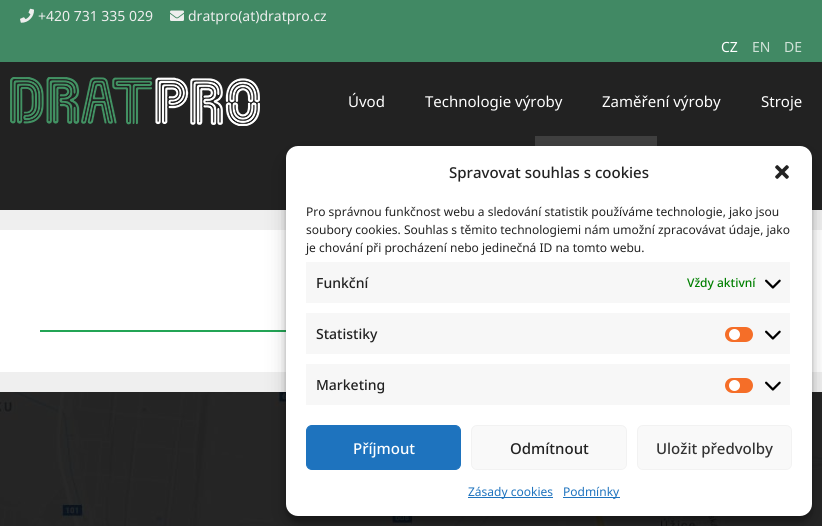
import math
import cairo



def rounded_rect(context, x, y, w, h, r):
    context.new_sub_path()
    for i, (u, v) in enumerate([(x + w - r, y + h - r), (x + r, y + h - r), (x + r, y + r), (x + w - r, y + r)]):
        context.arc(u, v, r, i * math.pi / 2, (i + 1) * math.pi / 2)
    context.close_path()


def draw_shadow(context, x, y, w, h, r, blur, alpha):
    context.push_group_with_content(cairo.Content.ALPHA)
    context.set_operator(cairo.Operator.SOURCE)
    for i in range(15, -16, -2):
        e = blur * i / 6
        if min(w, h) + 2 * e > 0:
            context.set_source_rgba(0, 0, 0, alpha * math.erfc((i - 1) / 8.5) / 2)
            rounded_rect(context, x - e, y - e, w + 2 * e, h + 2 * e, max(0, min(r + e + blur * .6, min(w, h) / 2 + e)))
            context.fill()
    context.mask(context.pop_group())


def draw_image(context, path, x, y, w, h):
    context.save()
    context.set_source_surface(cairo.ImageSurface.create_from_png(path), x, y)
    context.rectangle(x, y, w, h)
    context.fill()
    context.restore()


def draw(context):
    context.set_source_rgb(239 / 255, 239 / 255, 239 / 255)
    context.paint()
    context.set_source_rgb(65 / 255, 137 / 255, 100 / 255)
    context.rectangle(0, 0, 822, 62)
    context.fill()
    draw_image(context, "images/1.png", 20, 8, 14, 15)
    draw_image(context, "images/2.png", 170, 10, 14, 11)
    context.set_source_rgb(34 / 255, 34 / 255, 34 / 255)
    context.rectangle(0, 62, 822, 148)
    context.fill()
    draw_image(context, "images/3.png", 10, 77, 250, 49)
    context.set_source_rgb(63 / 255, 63 / 255, 63 / 255)
    context.rectangle(535, 136, 122, 10)
    context.fill()
    context.set_source_rgb(1, 1, 1)
    context.rectangle(0, 230, 822, 142)
    context.fill()
    context.set_source_rgb(35 / 255, 164 / 255, 85 / 255)
    context.rectangle(40, 330, 246, 2)
    context.fill()
    draw_image(context, "images/6.png", 0, 392, 822, 134)
    context.set_source_rgb(0, 0, 0)
    draw_shadow(context, 286, 152, 526, 370, 12, 3, 0.23)
    draw_shadow(context, 286, 156, 526, 370, 12, 10, 0.19)
    context.set_source_rgb(1, 1, 1)
    rounded_rect(context, 286, 146, 526, 370, 12)
    context.fill()
    draw_image(context, "images/4.png", 775, 165, 14, 14)
    context.set_source_rgb(247 / 255, 247 / 255, 247 / 255)
    context.rectangle(306, 262, 484, 41)
    context.fill()
    draw_image(context, "images/5.png", 765, 279, 16, 10)
    context.rectangle(306, 313, 484, 41)
    context.fill()
    context.set_source_rgb(245 / 255, 110 / 255, 40 / 255)
    rounded_rect(context, 725, 327, 28, 15, 7.5)
    context.fill()
    context.set_source_rgb(1, 1, 1)
    context.arc(734.5, 334.5, 5.5, 0, 2 * math.pi)
    context.fill()
    draw_image(context, "images/5.png", 765, 330, 16, 10)
    context.set_source_rgb(247 / 255, 247 / 255, 247 / 255)
    context.rectangle(306, 364, 484, 41)
    context.fill()
    context.set_source_rgb(245 / 255, 110 / 255, 40 / 255)
    rounded_rect(context, 725, 378, 28, 15, 7.5)
    context.fill()
    context.set_source_rgb(1, 1, 1)
    context.arc(734.5, 385.5, 5.5, 0, 2 * math.pi)
    context.fill()
    draw_image(context, "images/5.png", 765, 381, 16, 10)
    context.set_source_rgb(30 / 255, 115 / 255, 190 / 255)
    rounded_rect(context, 306.5, 425.5, 154, 44, 5.5)
    context.fill_preserve()
    context.set_line_width(1)
    context.stroke()
    context.set_source_rgb(249 / 255, 249 / 255, 249 / 255)
    rounded_rect(context, 471.5, 425.5, 155, 44, 5.5)
    context.fill_preserve()
    context.set_source_rgb(242 / 255, 242 / 255, 242 / 255)
    context.stroke()
    context.set_source_rgb(249 / 255, 249 / 255, 249 / 255)
    rounded_rect(context, 637.5, 425.5, 154, 44, 5.5)
    context.fill_preserve()
    context.set_source_rgb(242 / 255, 242 / 255, 242 / 255)
    context.stroke()
    context.set_source_rgb(30 / 255, 115 / 255, 190 / 255)
    context.rectangle(468, 497, 85, 1)
    context.fill()
    context.rectangle(563, 497, 57, 1)
    context.fill()
    context.select_font_face("Noto Sans")
    context.set_font_size(14)
    context.set_source_rgb(238 / 255, 238 / 255, 238 / 255)
    context.move_to(38, 21)
    context.show_text("+420 731 335 029")
    context.move_to(188, 21)
    context.show_text("dratpro(at)dratpro.cz")
    context.set_source_rgb(1, 1, 1)
    context.move_to(721, 52)
    context.show_text("CZ")
    context.set_source_rgb(208 / 255, 226 / 255, 216 / 255)
    context.move_to(752, 52)
    context.show_text("EN")
    context.move_to(784, 52)
    context.show_text("DE")
    context.set_font_size(15)
    context.set_source_rgb(1, 1, 1)
    context.move_to(348, 107)
    context.show_text("Úvod")
    context.move_to(425, 107)
    context.show_text("Technologie výroby")
    context.move_to(602, 107)
    context.show_text("Zaměření výroby")
    context.move_to(761, 107)
    context.show_text("Stroje")
    context.select_font_face("Noto Sans Medium")
    context.set_source_rgb(34 / 255, 34 / 255, 34 / 255)
    context.move_to(449, 178)
    context.show_text("Spravovat souhlas s cookies")
    context.select_font_face("Noto Sans")
    context.set_font_size(12)
    context.move_to(306, 216)
    context.show_text("Pro správnou funkčnost webu a sledování statistik používáme technologie, jako jsou")
    context.move_to(306, 234)
    context.show_text("soubory cookies. Souhlas s těmito technologiemi nám umožní zpracovávat údaje, jako")
    context.move_to(306, 252)
    context.show_text("je chování při procházení nebo jedinečná ID na tomto webu.")
    context.select_font_face("Noto Sans Medium")
    context.set_font_size(14)
    context.move_to(316, 288)
    context.show_text("Funkční")
    context.set_font_size(12)
    context.set_source_rgb(0, 128 / 255, 0)
    context.move_to(687, 287)
    context.show_text("Vždy aktivní")
    context.set_font_size(14)
    context.set_source_rgb(34 / 255, 34 / 255, 34 / 255)
    context.move_to(316, 339)
    context.show_text("Statistiky")
    context.move_to(316, 390)
    context.show_text("Marketing")
    context.set_font_size(15)
    context.set_source_rgb(1, 1, 1)
    context.move_to(353, 454)
    context.show_text("Příjmout")
    context.set_source_rgb(34 / 255, 34 / 255, 34 / 255)
    context.move_to(510, 454)
    context.show_text("Odmítnout")
    context.set_source_rgb(51 / 255, 51 / 255, 51 / 255)
    context.move_to(656, 454)
    context.show_text("Uložit předvolby")
    context.select_font_face("Noto Sans")
    context.set_font_size(12)
    context.set_source_rgb(30 / 255, 115 / 255, 190 / 255)
    context.move_to(468, 496)
    context.show_text("Zásady cookies")
    context.move_to(563, 496)
    context.show_text("Podmínky")


surface = cairo.ImageSurface(cairo.Format.RGB24, 822, 526)
context = cairo.Context(surface)
options = cairo.FontOptions()
options.set_hint_metrics(cairo.HintMetrics.OFF)
options.set_hint_style(cairo.HintStyle.NONE)
context.set_font_options(options)
context.set_miter_limit(4)
draw(context)
surface.write_to_png("out.png")
